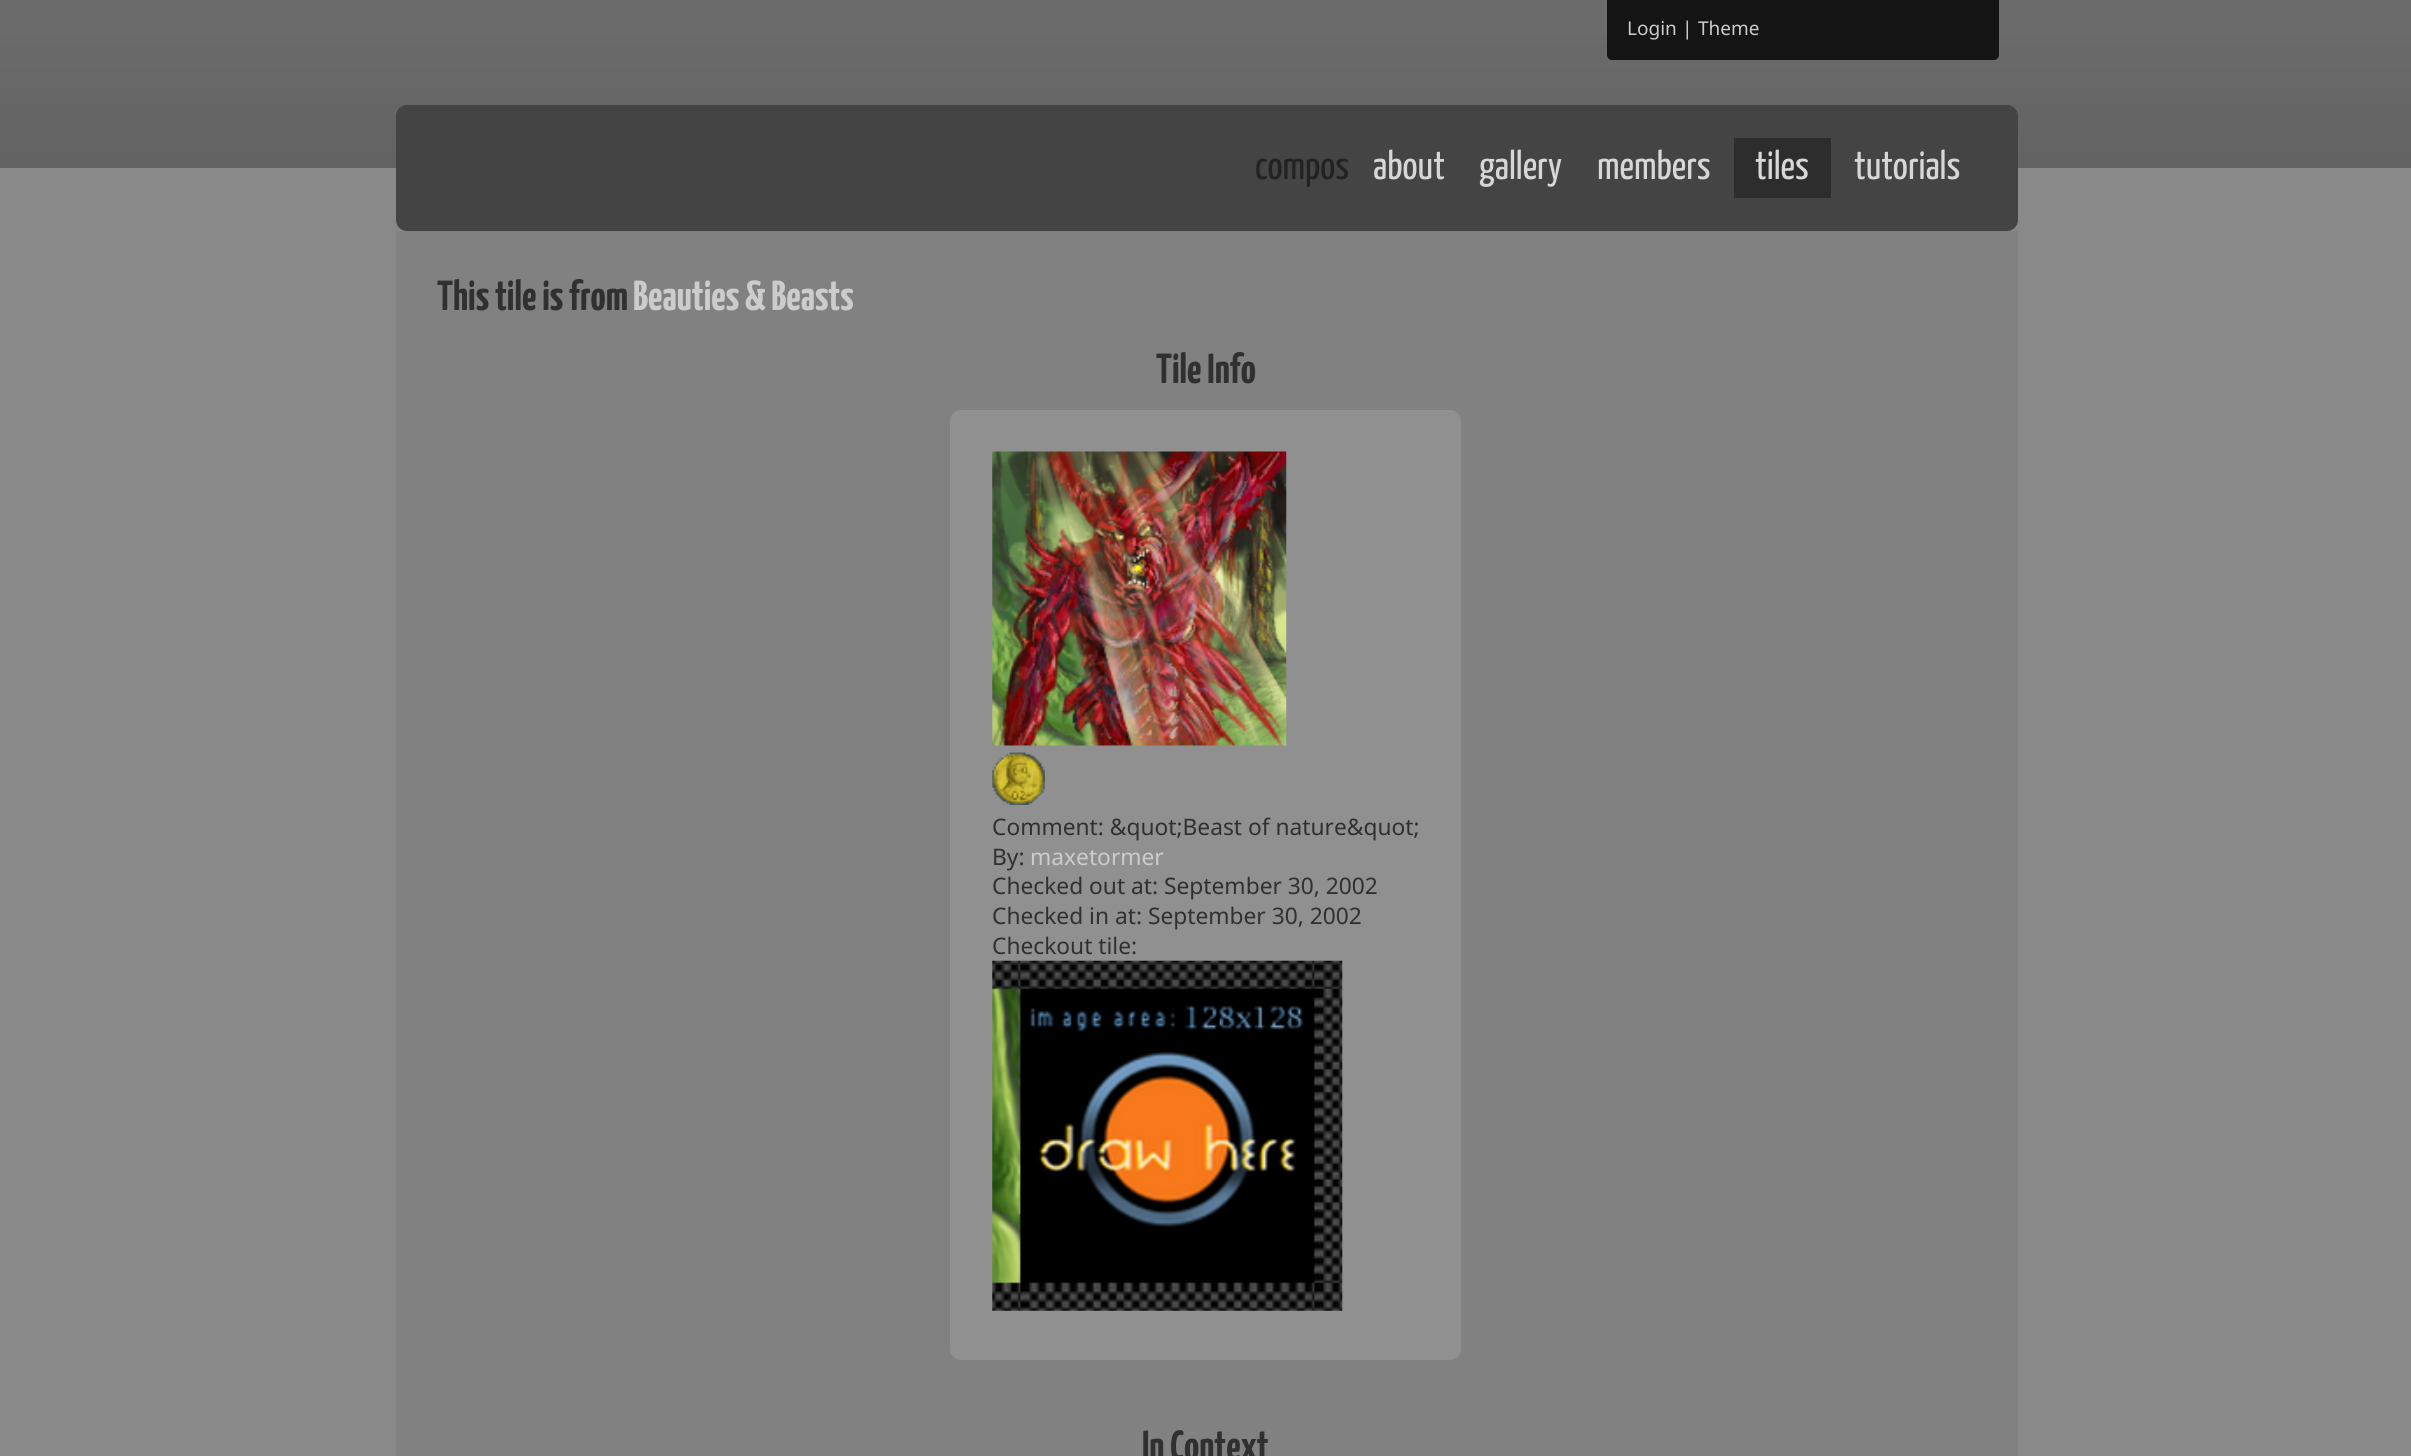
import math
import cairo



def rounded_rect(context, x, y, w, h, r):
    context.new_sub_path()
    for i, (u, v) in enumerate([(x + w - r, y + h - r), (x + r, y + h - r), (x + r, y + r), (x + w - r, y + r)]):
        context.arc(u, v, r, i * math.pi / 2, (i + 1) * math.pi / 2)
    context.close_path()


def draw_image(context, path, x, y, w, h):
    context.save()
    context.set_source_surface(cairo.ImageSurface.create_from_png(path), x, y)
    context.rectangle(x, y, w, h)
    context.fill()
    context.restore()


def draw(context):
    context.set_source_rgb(137 / 255, 137 / 255, 137 / 255)
    context.paint()
    draw_image(context, "images/1.png", 0, 0, 2411, 168)
    context.set_source_rgb(20 / 255, 20 / 255, 20 / 255)
    rounded_rect(context, 1607, -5, 392, 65, 5)
    context.fill()
    context.set_source_rgb(68 / 255, 68 / 255, 68 / 255)
    rounded_rect(context, 396, 105, 1622, 126, 11)
    context.fill()
    context.set_source_rgb(45 / 255, 45 / 255, 45 / 255)
    context.rectangle(1734, 138, 97, 60)
    context.fill()
    context.set_source_rgb(129 / 255, 129 / 255, 129 / 255)
    context.rectangle(396, 231, 1622, 1225)
    context.fill()
    context.set_source_rgb(144 / 255, 144 / 255, 144 / 255)
    rounded_rect(context, 950, 410, 511, 950, 11)
    context.fill()
    draw_image(context, "images/2.png", 992, 451, 295, 295)
    draw_image(context, "images/3.png", 992, 752, 53, 53)
    draw_image(context, "images/4.png", 992, 960, 351, 351)
    context.select_font_face("Noto Sans")
    context.set_font_size(19)
    context.set_source_rgb(204 / 255, 204 / 255, 204 / 255)
    context.move_to(1627, 35)
    context.show_text("Login")
    context.set_source_rgb(215 / 255, 215 / 255, 215 / 255)
    context.move_to(1682, 35)
    context.show_text("|")
    context.set_source_rgb(204 / 255, 204 / 255, 204 / 255)
    context.move_to(1698, 35)
    context.show_text("Theme")
    context.select_font_face("Yanone Kaffeesatz")
    context.set_font_size(40)
    context.set_source_rgb(34 / 255, 34 / 255, 34 / 255)
    context.move_to(1255, 179)
    context.show_text("compos")
    context.set_source_rgb(215 / 255, 215 / 255, 215 / 255)
    context.move_to(1373, 179)
    context.show_text("about")
    context.move_to(1479, 179)
    context.show_text("gallery")
    context.move_to(1597, 179)
    context.show_text("members")
    context.move_to(1755, 179)
    context.show_text("tiles")
    context.move_to(1854, 179)
    context.show_text("tutorials")
    context.select_font_face("Yanone Kaffeesatz", cairo.FontSlant.NORMAL, cairo.FontWeight.BOLD)
    context.set_font_size(42)
    context.set_source_rgb(48 / 255, 48 / 255, 48 / 255)
    context.move_to(437, 310)
    context.show_text("This tile is from")
    context.set_source_rgb(204 / 255, 204 / 255, 204 / 255)
    context.move_to(633, 310)
    context.show_text("Beauties & Beasts")
    context.set_source_rgb(48 / 255, 48 / 255, 48 / 255)
    context.move_to(1156, 383)
    context.show_text("Tile Info")
    context.select_font_face("Noto Sans")
    context.set_font_size(22.75)
    context.move_to(992, 835)
    context.show_text("Comment: &quot;Beast of nature&quot;")
    context.move_to(992, 865)
    context.show_text("By:")
    context.set_source_rgb(204 / 255, 204 / 255, 204 / 255)
    context.move_to(1030, 865)
    context.show_text("maxetormer")
    context.set_source_rgb(48 / 255, 48 / 255, 48 / 255)
    context.move_to(992, 894)
    context.show_text("Checked out at: September 30, 2002")
    context.move_to(992, 924)
    context.show_text("Checked in at: September 30, 2002")
    context.move_to(992, 954)
    context.show_text("Checkout tile:")
    context.select_font_face("Yanone Kaffeesatz", cairo.FontSlant.NORMAL, cairo.FontWeight.BOLD)
    context.set_font_size(42)
    context.move_to(1142, 1460)
    context.show_text("In Context")


surface = cairo.ImageSurface(cairo.Format.RGB24, 2411, 1456)
context = cairo.Context(surface)
options = cairo.FontOptions()
options.set_hint_metrics(cairo.HintMetrics.OFF)
options.set_hint_style(cairo.HintStyle.NONE)
context.set_font_options(options)
context.set_miter_limit(4)
draw(context)
surface.write_to_png("out.png")
